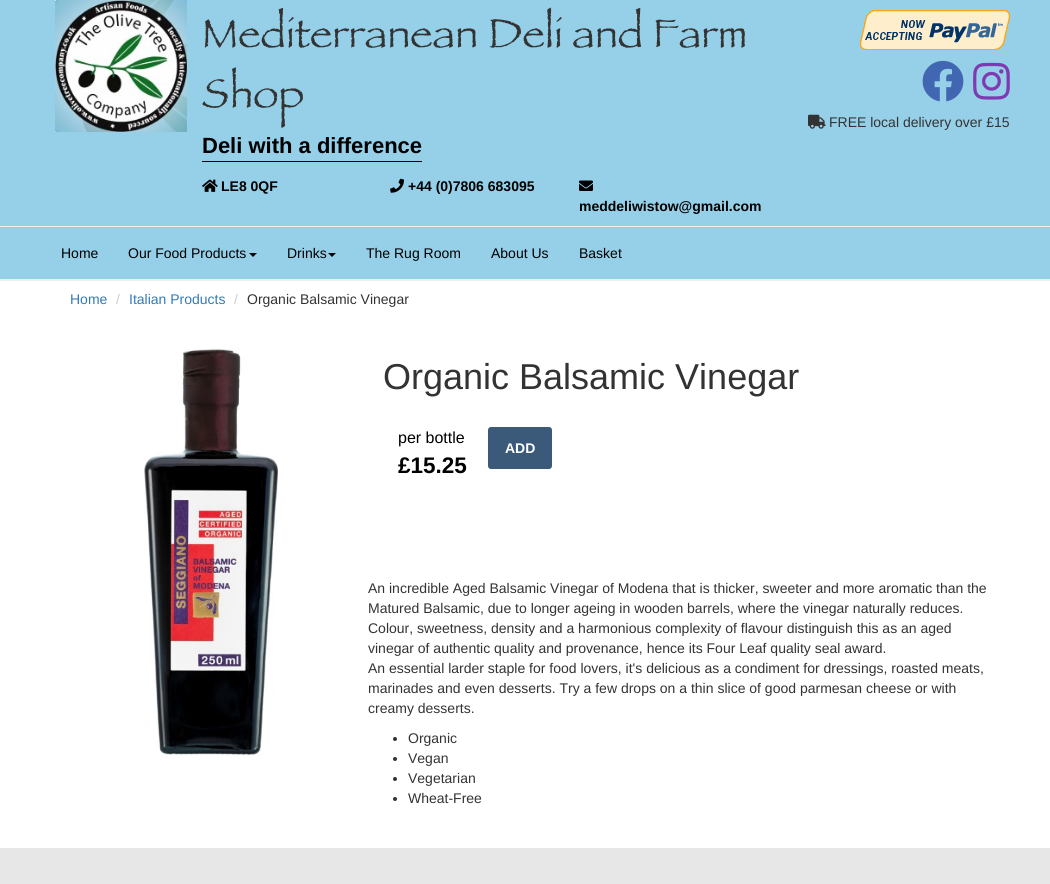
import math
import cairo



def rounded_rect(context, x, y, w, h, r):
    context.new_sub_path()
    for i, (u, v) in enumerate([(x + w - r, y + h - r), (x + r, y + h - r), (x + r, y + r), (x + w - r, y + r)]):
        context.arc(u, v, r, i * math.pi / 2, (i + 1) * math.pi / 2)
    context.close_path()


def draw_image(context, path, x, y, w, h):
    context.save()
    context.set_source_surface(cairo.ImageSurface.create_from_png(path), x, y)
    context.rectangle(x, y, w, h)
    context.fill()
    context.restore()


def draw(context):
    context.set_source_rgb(1, 1, 1)
    context.paint()
    context.set_source_rgb(149 / 255, 207 / 255, 232 / 255)
    context.rectangle(0, 0, 1050, 226)
    context.fill()
    draw_image(context, "images/1.png", 55, 0, 132, 132)
    context.set_source_rgb(0, 0, 0)
    context.rectangle(202, 161, 220, 1)
    context.fill()
    draw_image(context, "images/2.png", 202, 179, 16, 13)
    draw_image(context, "images/3.png", 390, 178, 14, 15)
    draw_image(context, "images/4.png", 579, 180, 14, 11)
    draw_image(context, "images/5.png", 860, 10, 150, 40)
    draw_image(context, "images/6.png", 922, 60, 42, 42)
    draw_image(context, "images/7.png", 973, 62, 37, 38)
    draw_image(context, "images/8.png", 808, 114, 18, 15)
    context.set_source_rgb(149 / 255, 207 / 255, 232 / 255)
    context.rectangle(0, 227, 1050, 52)
    context.fill()
    context.set_source_rgb(238 / 255, 238 / 255, 238 / 255)
    context.rectangle(0, 226, 1050, 1)
    context.fill()
    context.rectangle(0, 279, 1050, 2)
    context.fill()
    context.set_source_rgb(0, 0, 0)
    context.new_path()
    context.move_to(249, 253)
    context.line_to(257, 253)
    context.line_to(253, 257)
    context.close_path()
    context.fill()
    context.new_path()
    context.move_to(328, 253)
    context.line_to(336, 253)
    context.line_to(332, 257)
    context.close_path()
    context.fill()
    draw_image(context, "images/9.png", 144, 348, 134, 408)
    context.set_source_rgb(59 / 255, 89 / 255, 120 / 255)
    rounded_rect(context, 488, 427, 64, 42, 3)
    context.fill()
    context.set_source_rgb(51 / 255, 51 / 255, 51 / 255)
    context.arc(395, 739, 2, 0, 2 * math.pi)
    context.fill()
    context.arc(395, 759, 2, 0, 2 * math.pi)
    context.fill()
    context.arc(395, 779, 2, 0, 2 * math.pi)
    context.fill()
    context.arc(395, 799, 2, 0, 2 * math.pi)
    context.fill()
    context.set_source_rgb(231 / 255, 231 / 255, 231 / 255)
    context.rectangle(0, 848, 1050, 36)
    context.fill()
    context.select_font_face("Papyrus")
    context.set_font_size(42)
    context.set_source_rgb(51 / 255, 51 / 255, 51 / 255)
    context.move_to(202, 47)
    context.show_text("Mediterranean Deli and Farm")
    context.move_to(202, 107)
    context.show_text("Shop")
    context.select_font_face("Liberation Sans", cairo.FontSlant.NORMAL, cairo.FontWeight.BOLD)
    context.set_font_size(22)
    context.set_source_rgb(0, 0, 0)
    context.move_to(202, 153)
    context.show_text("Deli with a difference")
    context.set_font_size(14)
    context.move_to(221, 191)
    context.show_text("LE8 0QF")
    context.move_to(408, 191)
    context.show_text("+44 (0)7806 683095")
    context.move_to(579, 211)
    context.show_text("meddeliwistow@gmail.com")
    context.select_font_face("Liberation Sans")
    context.set_source_rgb(51 / 255, 51 / 255, 51 / 255)
    context.move_to(829, 127)
    context.show_text("FREE local delivery over £15")
    context.set_source_rgb(0, 0, 0)
    context.move_to(61, 258)
    context.show_text("Home")
    context.move_to(128, 258)
    context.show_text("Our Food Products")
    context.move_to(287, 258)
    context.show_text("Drinks")
    context.move_to(366, 258)
    context.show_text("The Rug Room")
    context.move_to(491, 258)
    context.show_text("About Us")
    context.move_to(579, 258)
    context.show_text("Basket")
    context.set_source_rgb(51 / 255, 122 / 255, 183 / 255)
    context.move_to(70, 304)
    context.show_text("Home")
    context.set_source_rgb(204 / 255, 204 / 255, 204 / 255)
    context.move_to(116, 304)
    context.show_text("/")
    context.set_source_rgb(51 / 255, 122 / 255, 183 / 255)
    context.move_to(129, 304)
    context.show_text("Italian Products")
    context.set_source_rgb(204 / 255, 204 / 255, 204 / 255)
    context.move_to(234, 304)
    context.show_text("/")
    context.set_source_rgb(51 / 255, 51 / 255, 51 / 255)
    context.move_to(247, 304)
    context.show_text("Organic Balsamic Vinegar")
    context.set_font_size(36)
    context.move_to(383, 389)
    context.show_text("Organic Balsamic Vinegar")
    context.set_font_size(16)
    context.set_source_rgb(0, 0, 0)
    context.move_to(398, 443)
    context.show_text("per bottle")
    context.select_font_face("Liberation Sans", cairo.FontSlant.NORMAL, cairo.FontWeight.BOLD)
    context.set_font_size(22.5)
    context.move_to(398, 473)
    context.show_text("£15.25")
    context.set_font_size(14)
    context.set_source_rgb(1, 1, 1)
    context.move_to(505, 453)
    context.show_text("ADD")
    context.select_font_face("Liberation Sans")
    context.set_source_rgb(51 / 255, 51 / 255, 51 / 255)
    context.move_to(368, 593)
    context.show_text("An incredible Aged Balsamic Vinegar of Modena that is thicker, sweeter and more aromatic than the")
    context.move_to(368, 613)
    context.show_text("Matured Balsamic, due to longer ageing in wooden barrels, where the vinegar naturally reduces.")
    context.move_to(368, 633)
    context.show_text("Colour, sweetness, density and a harmonious complexity of flavour distinguish this as an aged")
    context.move_to(368, 653)
    context.show_text("vinegar of authentic quality and provenance, hence its Four Leaf quality seal award.")
    context.move_to(368, 673)
    context.show_text("An essential larder staple for food lovers, it's delicious as a condiment for dressings, roasted meats,")
    context.move_to(368, 693)
    context.show_text("marinades and even desserts. Try a few drops on a thin slice of good parmesan cheese or with")
    context.move_to(368, 713)
    context.show_text("creamy desserts.")
    context.move_to(408, 743)
    context.show_text("Organic")
    context.move_to(408, 763)
    context.show_text("Vegan")
    context.move_to(408, 783)
    context.show_text("Vegetarian")
    context.move_to(408, 803)
    context.show_text("Wheat-Free")


surface = cairo.ImageSurface(cairo.Format.RGB24, 1050, 884)
context = cairo.Context(surface)
options = cairo.FontOptions()
options.set_hint_metrics(cairo.HintMetrics.OFF)
options.set_hint_style(cairo.HintStyle.NONE)
context.set_font_options(options)
context.set_miter_limit(4)
draw(context)
surface.write_to_png("out.png")
